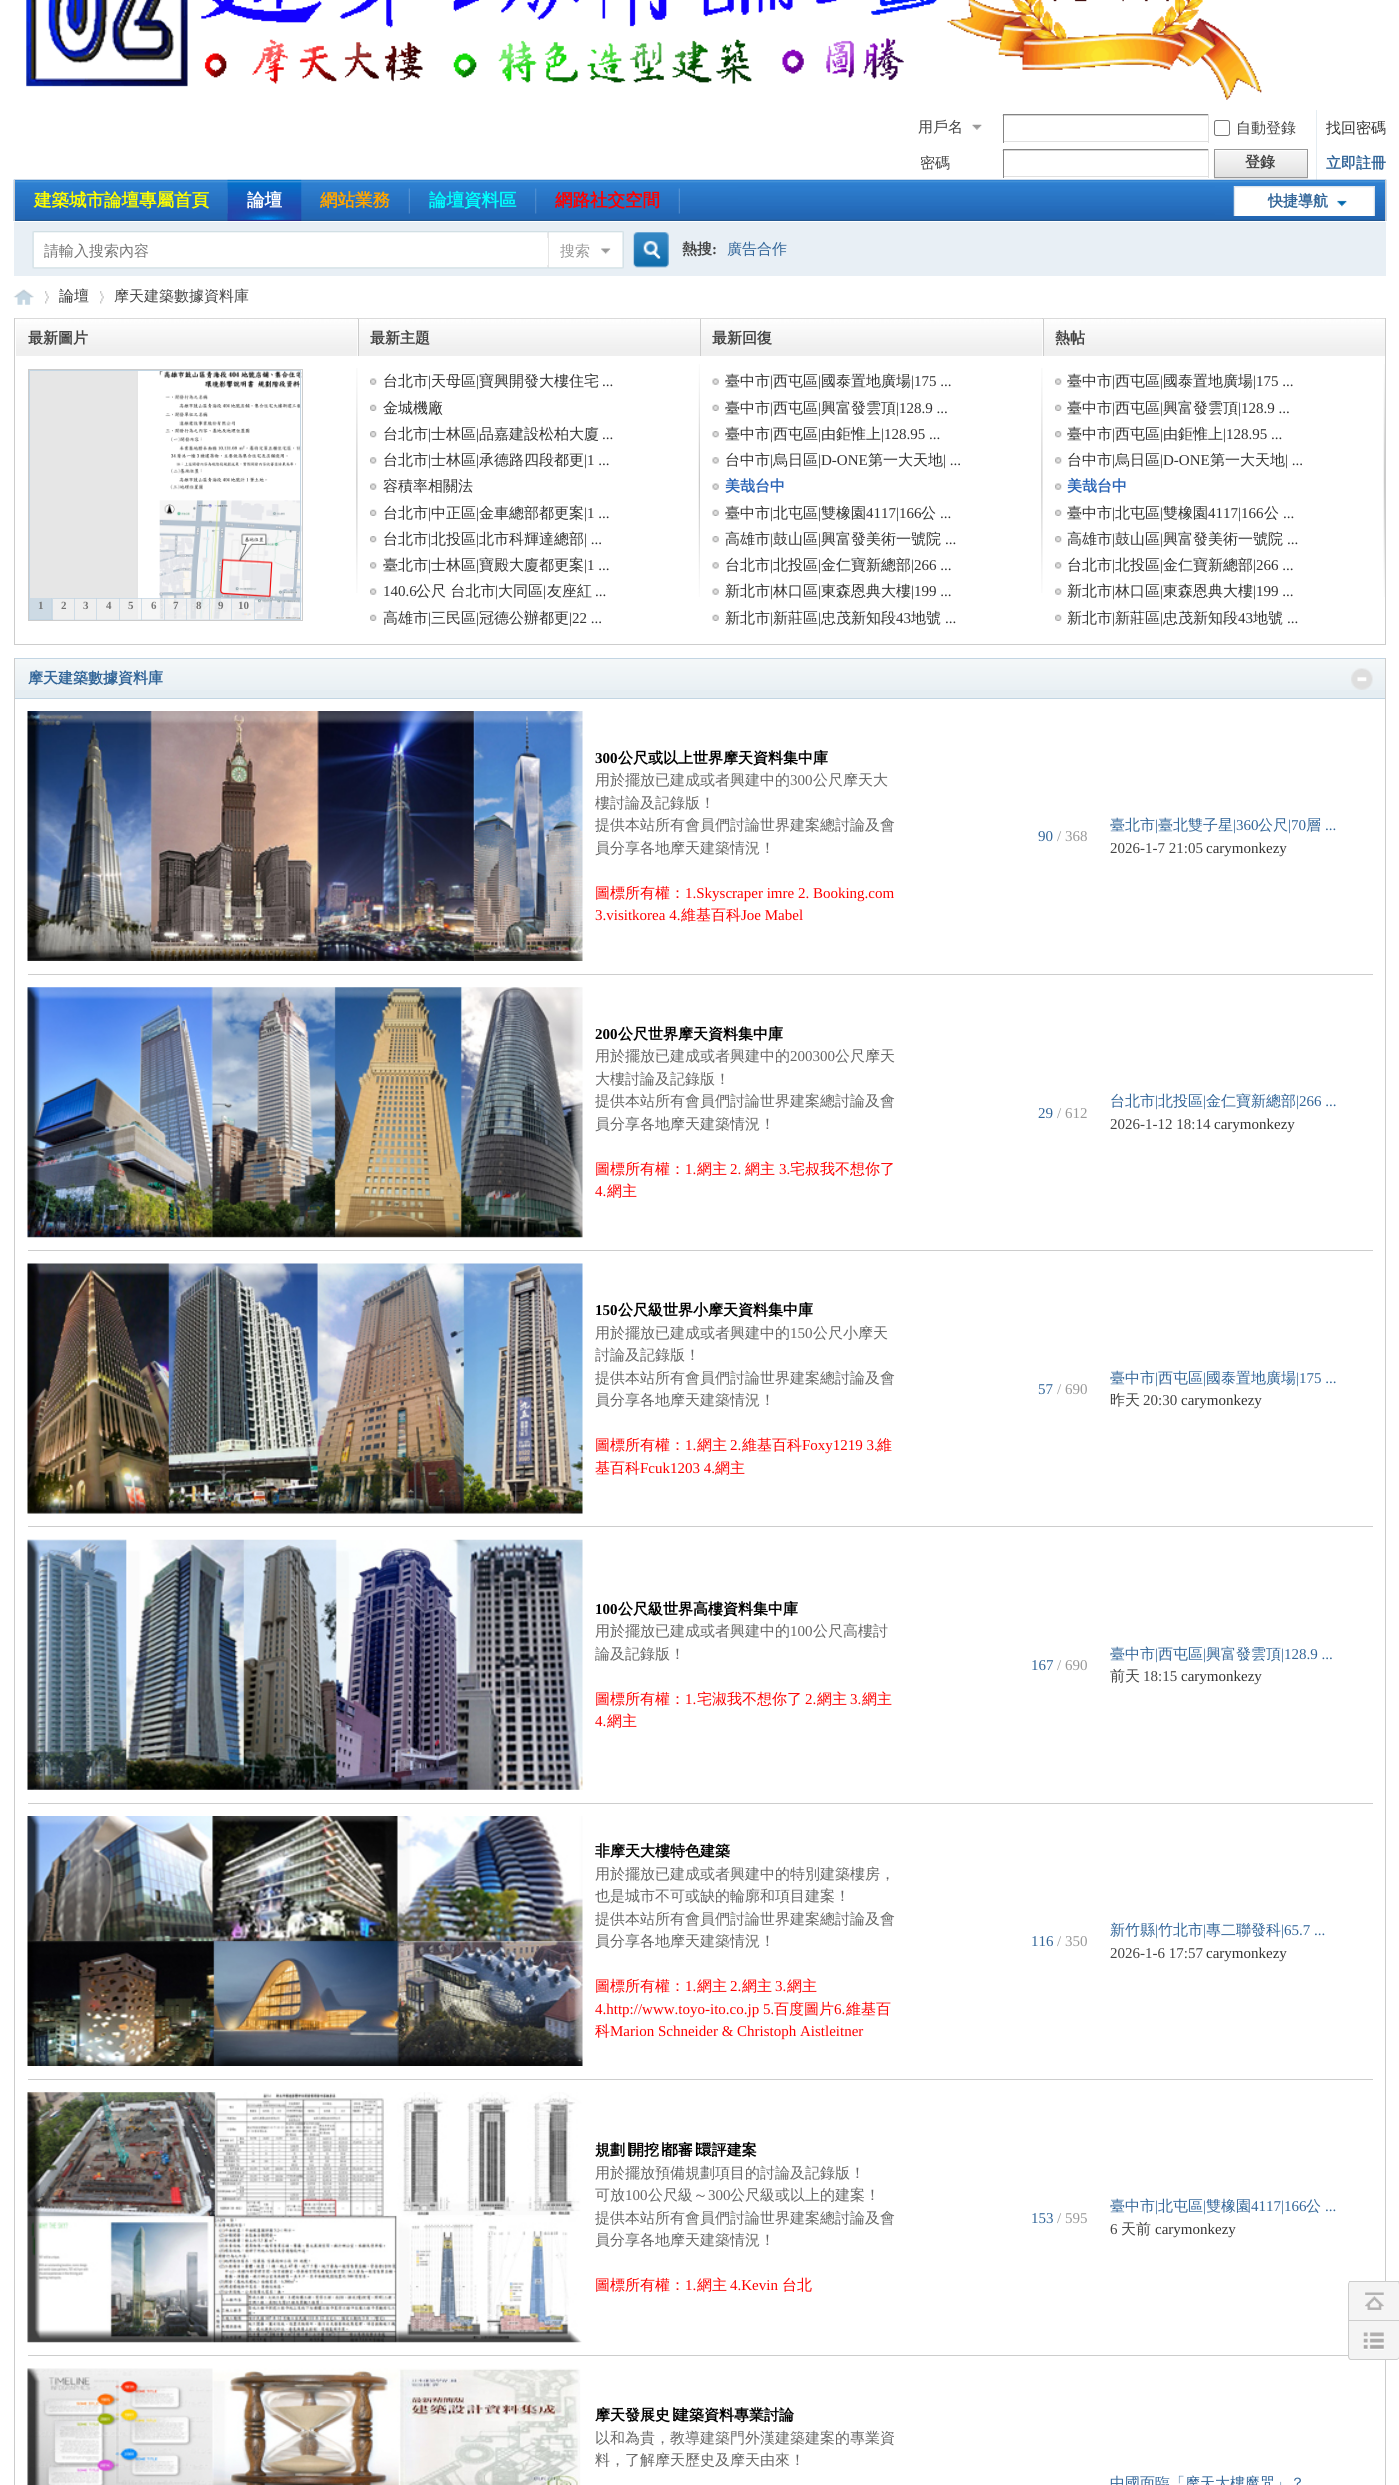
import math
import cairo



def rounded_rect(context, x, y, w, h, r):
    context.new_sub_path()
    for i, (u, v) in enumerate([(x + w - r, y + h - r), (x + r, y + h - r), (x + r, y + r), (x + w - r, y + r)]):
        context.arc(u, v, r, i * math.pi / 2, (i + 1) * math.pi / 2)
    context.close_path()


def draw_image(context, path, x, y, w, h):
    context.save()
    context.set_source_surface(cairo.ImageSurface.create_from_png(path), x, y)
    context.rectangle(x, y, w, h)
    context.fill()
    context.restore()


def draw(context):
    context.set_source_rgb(1, 1, 1)
    context.paint()
    draw_image(context, "images/1.png", 26, 0, 1236, 100)
    draw_image(context, "images/2.png", 972, 124, 10, 6)
    draw_image(context, "images/3.png", 1002, 114, 206, 2)
    context.set_source_rgb(132 / 255, 132 / 255, 132 / 255)
    context.rectangle(1003, 114, 206, 1)
    context.fill()
    context.set_source_rgb(224 / 255, 224 / 255, 224 / 255)
    context.rectangle(1208, 114, 1, 29)
    context.fill()
    context.rectangle(1003, 141, 206, 1)
    context.fill()
    context.set_source_rgb(132 / 255, 132 / 255, 132 / 255)
    context.rectangle(1003, 114, 1, 29)
    context.fill()
    rounded_rect(context, 1214.5, 120.5, 15, 15, 2)
    context.set_source_rgb(118 / 255, 118 / 255, 118 / 255)
    context.set_line_width(1)
    context.stroke()
    draw_image(context, "images/3.png", 1002, 149, 206, 2)
    context.set_source_rgb(132 / 255, 132 / 255, 132 / 255)
    context.rectangle(1003, 149, 206, 1)
    context.fill()
    context.set_source_rgb(224 / 255, 224 / 255, 224 / 255)
    context.rectangle(1208, 149, 1, 29)
    context.fill()
    context.rectangle(1003, 176, 206, 1)
    context.fill()
    context.set_source_rgb(132 / 255, 132 / 255, 132 / 255)
    context.rectangle(1003, 149, 1, 29)
    context.fill()
    context.set_source_rgb(229 / 255, 237 / 255, 242 / 255)
    context.rectangle(1316, 110, 1, 71)
    context.fill()
    context.set_source_rgb(229 / 255, 229 / 255, 229 / 255)
    context.new_path()
    context.move_to(1214, 178)
    context.line_to(1214, 179)
    context.line_to(1308, 179)
    context.line_to(1308, 150)
    context.line_to(1308, 178)
    context.close_path()
    context.fill()
    draw_image(context, "images/4.png", 1213, 149, 94, 28)
    context.rectangle(1214.5, 149.5, 93, 28)
    context.set_source_rgb(153 / 255, 153 / 255, 153 / 255)
    context.stroke()
    draw_image(context, "images/5.png", 13, 179, 1374, 42)
    context.set_source_rgb(205 / 255, 205 / 255, 205 / 255)
    context.rectangle(1385, 180, 1, 41)
    context.fill()
    context.rectangle(14, 180, 1, 41)
    context.fill()
    draw_image(context, "images/6.png", 227, 188, 1, 26)
    draw_image(context, "images/7.png", 227, 179, 75, 42)
    draw_image(context, "images/8.png", 408, 188, 2, 26)
    draw_image(context, "images/9.png", 535, 188, 2, 26)
    draw_image(context, "images/8.png", 678, 188, 2, 26)
    draw_image(context, "images/10.png", 1233, 186, 142, 30)
    context.set_source_rgb(232 / 255, 239 / 255, 245 / 255)
    context.rectangle(14, 222, 1372, 54)
    context.fill()
    draw_image(context, "images/11.png", 32, 231, 8, 38)
    draw_image(context, "images/12.png", 40, 231, 508, 38)
    draw_image(context, "images/13.png", 547, 231, 77, 38)
    context.set_source_rgb(1, 1, 1)
    context.rectangle(547, 238, 1, 27)
    context.fill()
    draw_image(context, "images/14.png", 633, 232, 36, 36)
    draw_image(context, "images/15.png", 13, 289, 21, 16)
    draw_image(context, "images/16.png", 45, 291, 4, 13)
    draw_image(context, "images/16.png", 100, 291, 4, 13)
    context.set_source_rgb(205 / 255, 205 / 255, 205 / 255)
    context.rectangle(1385, 318, 1, 327)
    context.fill()
    context.rectangle(14, 644, 1372, 1)
    context.fill()
    context.rectangle(14, 318, 1, 327)
    context.fill()
    context.rectangle(15, 318, 1370, 1)
    context.fill()
    draw_image(context, "images/17.png", 356, 368, 2, 225)
    draw_image(context, "images/18.png", 15, 318, 343, 38)
    context.set_source_rgb(1, 1, 1)
    context.rectangle(15, 319, 1, 37)
    context.fill()
    context.rectangle(28.5, 369.5, 274, 251)
    context.set_source_rgb(204 / 255, 204 / 255, 204 / 255)
    context.stroke()
    draw_image(context, "images/19.png", 30, 370, 272, 250)
    context.rectangle(29.5, 370.5, 271, 249)
    context.set_source_rgb(194 / 255, 213 / 255, 227 / 255)
    context.stroke()
    context.set_source_rgba(194 / 255, 213 / 255, 227 / 255, 0.7)
    context.rectangle(30, 598, 23, 21)
    context.fill()
    context.rectangle(51, 598, 1, 22)
    context.fill()
    context.set_source_rgba(242 / 255, 242 / 255, 242 / 255, 0.7)
    context.rectangle(53, 599, 22, 21)
    context.fill()
    context.set_source_rgb(205 / 255, 218 / 255, 228 / 255)
    context.rectangle(53, 598, 67, 1)
    context.fill()
    context.set_source_rgba(194 / 255, 213 / 255, 227 / 255, 0.7)
    context.rectangle(74, 598, 1, 22)
    context.fill()
    context.set_source_rgba(242 / 255, 242 / 255, 242 / 255, 0.7)
    context.rectangle(75, 599, 23, 21)
    context.fill()
    context.set_source_rgba(194 / 255, 213 / 255, 227 / 255, 0.7)
    context.rectangle(96, 598, 1, 22)
    context.fill()
    context.set_source_rgba(242 / 255, 242 / 255, 242 / 255, 0.7)
    context.rectangle(98, 599, 22, 21)
    context.fill()
    context.set_source_rgba(194 / 255, 213 / 255, 227 / 255, 0.7)
    context.rectangle(119, 598, 1, 22)
    context.fill()
    context.set_source_rgba(242 / 255, 242 / 255, 242 / 255, 0.7)
    context.rectangle(120, 598, 23, 22)
    context.fill()
    context.set_source_rgba(194 / 255, 213 / 255, 227 / 255, 0.7)
    context.rectangle(120, 598, 23, 1)
    context.fill()
    context.rectangle(141, 598, 1, 22)
    context.fill()
    context.set_source_rgba(242 / 255, 242 / 255, 242 / 255, 0.7)
    context.rectangle(143, 598, 22, 22)
    context.fill()
    context.set_source_rgba(194 / 255, 213 / 255, 227 / 255, 0.7)
    context.rectangle(143, 598, 22, 1)
    context.fill()
    context.rectangle(164, 598, 1, 22)
    context.fill()
    context.set_source_rgba(242 / 255, 242 / 255, 242 / 255, 0.7)
    context.rectangle(165, 598, 23, 22)
    context.fill()
    context.set_source_rgba(194 / 255, 213 / 255, 227 / 255, 0.7)
    context.rectangle(165, 598, 23, 1)
    context.fill()
    context.rectangle(186, 598, 1, 22)
    context.fill()
    context.set_source_rgba(242 / 255, 242 / 255, 242 / 255, 0.7)
    context.rectangle(188, 598, 22, 22)
    context.fill()
    context.set_source_rgba(194 / 255, 213 / 255, 227 / 255, 0.7)
    context.rectangle(188, 598, 22, 1)
    context.fill()
    context.rectangle(209, 598, 1, 22)
    context.fill()
    context.set_source_rgba(242 / 255, 242 / 255, 242 / 255, 0.7)
    context.rectangle(210, 598, 23, 22)
    context.fill()
    context.set_source_rgba(194 / 255, 213 / 255, 227 / 255, 0.7)
    context.rectangle(210, 598, 23, 1)
    context.fill()
    context.rectangle(231, 598, 1, 22)
    context.fill()
    context.set_source_rgba(242 / 255, 242 / 255, 242 / 255, 0.7)
    context.rectangle(233, 598, 22, 22)
    context.fill()
    context.set_source_rgba(194 / 255, 213 / 255, 227 / 255, 0.7)
    context.rectangle(233, 598, 22, 1)
    context.fill()
    context.rectangle(254, 598, 1, 22)
    context.fill()
    draw_image(context, "images/20.png", 698, 364, 2, 233)
    draw_image(context, "images/21.png", 358, 318, 342, 38)
    context.set_source_rgb(205 / 255, 205 / 255, 205 / 255)
    context.rectangle(358, 319, 1, 37)
    context.fill()
    draw_image(context, "images/22.png", 370, 378, 7, 7)
    draw_image(context, "images/23.png", 370, 404, 7, 7)
    draw_image(context, "images/24.png", 370, 431, 7, 7)
    draw_image(context, "images/25.png", 370, 457, 7, 7)
    draw_image(context, "images/22.png", 370, 483, 7, 7)
    draw_image(context, "images/23.png", 370, 509, 7, 7)
    draw_image(context, "images/24.png", 370, 536, 7, 7)
    draw_image(context, "images/25.png", 370, 562, 7, 7)
    draw_image(context, "images/22.png", 370, 588, 7, 7)
    draw_image(context, "images/23.png", 370, 614, 7, 7)
    draw_image(context, "images/17.png", 1041, 368, 2, 225)
    draw_image(context, "images/18.png", 700, 318, 343, 38)
    context.rectangle(700, 319, 1, 37)
    context.fill()
    draw_image(context, "images/26.png", 712, 378, 7, 7)
    draw_image(context, "images/27.png", 712, 404, 7, 7)
    draw_image(context, "images/28.png", 712, 431, 7, 7)
    draw_image(context, "images/29.png", 712, 457, 7, 7)
    draw_image(context, "images/26.png", 712, 483, 7, 7)
    draw_image(context, "images/27.png", 712, 509, 7, 7)
    draw_image(context, "images/28.png", 712, 536, 7, 7)
    draw_image(context, "images/29.png", 712, 562, 7, 7)
    draw_image(context, "images/26.png", 712, 588, 7, 7)
    draw_image(context, "images/27.png", 712, 614, 7, 7)
    draw_image(context, "images/20.png", 1383, 364, 2, 233)
    draw_image(context, "images/21.png", 1043, 318, 342, 38)
    context.rectangle(1043, 319, 1, 37)
    context.fill()
    draw_image(context, "images/30.png", 1055, 378, 7, 7)
    draw_image(context, "images/31.png", 1055, 404, 7, 7)
    draw_image(context, "images/32.png", 1055, 431, 7, 7)
    draw_image(context, "images/33.png", 1055, 457, 7, 7)
    draw_image(context, "images/30.png", 1055, 483, 7, 7)
    draw_image(context, "images/31.png", 1055, 509, 7, 7)
    draw_image(context, "images/32.png", 1055, 536, 7, 7)
    draw_image(context, "images/33.png", 1055, 562, 7, 7)
    draw_image(context, "images/30.png", 1055, 588, 7, 7)
    draw_image(context, "images/31.png", 1055, 614, 7, 7)
    context.rectangle(1385, 658, 1, 1827)
    context.fill()
    context.rectangle(14, 658, 1, 1827)
    context.fill()
    context.set_source_rgb(229 / 255, 237 / 255, 242 / 255)
    context.rectangle(15, 690, 1370, 8)
    context.fill()
    draw_image(context, "images/34.png", 15, 659, 1370, 31)
    context.set_source_rgb(194 / 255, 213 / 255, 227 / 255)
    context.rectangle(15, 658, 1370, 1)
    context.fill()
    context.rectangle(15, 698, 1370, 1)
    context.fill()
    draw_image(context, "images/35.png", 1351, 668, 22, 22)
    draw_image(context, "images/36.png", 27, 711, 556, 250)
    draw_image(context, "images/37.png", 27, 987, 556, 251)
    context.set_source_rgb(205 / 255, 205 / 255, 205 / 255)
    context.rectangle(28, 974, 1345, 1)
    context.fill()
    draw_image(context, "images/38.png", 27, 1263, 556, 251)
    context.rectangle(28, 1250, 1345, 1)
    context.fill()
    draw_image(context, "images/39.png", 27, 1539, 556, 251)
    context.rectangle(28, 1526, 1345, 1)
    context.fill()
    draw_image(context, "images/40.png", 27, 1816, 556, 250)
    context.rectangle(28, 1803, 1345, 1)
    context.fill()
    draw_image(context, "images/41.png", 27, 2092, 555, 251)
    context.rectangle(28, 2079, 1345, 1)
    context.fill()
    draw_image(context, "images/42.png", 27, 2368, 554, 117)
    context.rectangle(28, 2355, 1320, 1)
    context.fill()
    context.set_source_rgb(244 / 255, 244 / 255, 244 / 255)
    rounded_rect(context, 1348, 2281, 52, 79, 4)
    context.fill()
    context.set_source_rgb(205 / 255, 205 / 255, 205 / 255)
    context.set_fill_rule(cairo.FillRule.EVEN_ODD)
    context.new_path()
    context.move_to(1351, 2281)
    context.line_to(1396, 2281)
    context.curve_to(1398, 2281, 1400, 2283, 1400, 2285)
    context.line_to(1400, 2356)
    context.curve_to(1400, 2358, 1398, 2360, 1396, 2360)
    context.line_to(1351, 2360)
    context.curve_to(1349, 2360, 1348, 2358, 1348, 2356)
    context.line_to(1348, 2285)
    context.curve_to(1348, 2283, 1349, 2281, 1351, 2281)
    context.close_path()
    context.move_to(1351, 2281)
    context.line_to(1396, 2281)
    context.curve_to(1398, 2281, 1399, 2283, 1399, 2285)
    context.line_to(1399, 2356)
    context.curve_to(1399, 2358, 1398, 2359, 1396, 2359)
    context.line_to(1351, 2359)
    context.curve_to(1350, 2359, 1349, 2358, 1349, 2356)
    context.line_to(1349, 2285)
    context.curve_to(1349, 2283, 1350, 2281, 1351, 2281)
    context.close_path()
    context.fill()
    draw_image(context, "images/43.png", 1365, 2292, 19, 18)
    context.rectangle(1349, 2281, 50, 1)
    context.fill()
    draw_image(context, "images/44.png", 1363, 2332, 21, 18)
    context.rectangle(1349, 2320, 50, 1)
    context.fill()
    context.select_font_face("WenQuanYi Zen Hei Medium")
    context.set_font_size(15)
    context.set_source_rgb(68 / 255, 68 / 255, 68 / 255)
    context.move_to(918, 132)
    context.show_text("用戶名")
    context.move_to(1236, 133)
    context.show_text("自動登錄")
    context.set_source_rgb(51 / 255, 51 / 255, 51 / 255)
    context.move_to(1326, 133)
    context.show_text("找回密碼")
    context.set_source_rgb(68 / 255, 68 / 255, 68 / 255)
    context.move_to(920, 168)
    context.show_text("密碼")
    context.select_font_face("WenQuanYi Zen Hei", cairo.FontSlant.NORMAL, cairo.FontWeight.BOLD)
    context.move_to(1245, 167)
    context.show_text("登錄")
    context.set_source_rgb(51 / 255, 102 / 255, 153 / 255)
    context.move_to(1326, 168)
    context.show_text("立即註冊")
    context.set_font_size(17.5)
    context.set_source_rgb(1, 1, 0)
    context.move_to(34, 206)
    context.show_text("建築城市論壇專屬首頁")
    context.set_source_rgb(1, 1, 1)
    context.move_to(247, 206)
    context.show_text("論壇")
    context.set_source_rgb(1, 165 / 255, 0)
    context.move_to(320, 206)
    context.show_text("網站業務")
    context.set_source_rgb(0, 1, 1)
    context.move_to(429, 206)
    context.show_text("論壇資料區")
    context.set_source_rgb(1, 0, 0)
    context.move_to(555, 206)
    context.show_text("網路社交空間")
    context.set_font_size(15)
    context.set_source_rgb(51 / 255, 102 / 255, 153 / 255)
    context.move_to(1268, 206)
    context.show_text("快捷導航")
    context.select_font_face("WenQuanYi Zen Hei Medium")
    context.set_source_rgb(117 / 255, 117 / 255, 117 / 255)
    context.move_to(44, 256)
    context.show_text("請輸入搜索內容")
    context.set_source_rgb(153 / 255, 153 / 255, 153 / 255)
    context.move_to(560, 256)
    context.show_text("搜索")
    context.select_font_face("WenQuanYi Zen Hei", cairo.FontSlant.NORMAL, cairo.FontWeight.BOLD)
    context.set_source_rgb(68 / 255, 68 / 255, 68 / 255)
    context.move_to(682, 254)
    context.show_text("熱搜")
    context.select_font_face("Liberation Serif", cairo.FontSlant.NORMAL, cairo.FontWeight.BOLD)
    context.move_to(712, 254)
    context.show_text(":")
    context.select_font_face("WenQuanYi Zen Hei Medium")
    context.set_source_rgb(51 / 255, 102 / 255, 153 / 255)
    context.move_to(727, 254)
    context.show_text("廣告合作")
    context.set_source_rgb(51 / 255, 51 / 255, 51 / 255)
    context.move_to(59, 301)
    context.show_text("論壇")
    context.set_source_rgb(68 / 255, 68 / 255, 68 / 255)
    context.move_to(114, 301)
    context.show_text("摩天建築數據資料庫")
    context.select_font_face("WenQuanYi Zen Hei", cairo.FontSlant.NORMAL, cairo.FontWeight.BOLD)
    context.move_to(28, 343)
    context.show_text("最新圖片")
    context.select_font_face("Liberation Serif", cairo.FontSlant.NORMAL, cairo.FontWeight.BOLD)
    context.set_font_size(11)
    context.set_source_rgb(117 / 255, 117 / 255, 117 / 255)
    context.move_to(38, 609)
    context.show_text("1")
    context.move_to(61, 609)
    context.show_text("2")
    context.move_to(83, 609)
    context.show_text("3")
    context.move_to(106, 609)
    context.show_text("4")
    context.move_to(128, 609)
    context.show_text("5")
    context.set_source_rgb(124 / 255, 124 / 255, 124 / 255)
    context.move_to(151, 609)
    context.show_text("6")
    context.set_source_rgb(117 / 255, 117 / 255, 117 / 255)
    context.move_to(173, 609)
    context.show_text("7")
    context.move_to(196, 609)
    context.show_text("8")
    context.move_to(218, 609)
    context.show_text("9")
    context.move_to(238, 609)
    context.show_text("10")
    context.select_font_face("WenQuanYi Zen Hei", cairo.FontSlant.NORMAL, cairo.FontWeight.BOLD)
    context.set_font_size(15)
    context.set_source_rgb(68 / 255, 68 / 255, 68 / 255)
    context.move_to(370, 343)
    context.show_text("最新主題")
    context.select_font_face("WenQuanYi Zen Hei Medium")
    context.set_source_rgb(51 / 255, 51 / 255, 51 / 255)
    context.move_to(383, 386)
    context.show_text("台北市")
    context.select_font_face("Liberation Serif")
    context.move_to(428, 386)
    context.show_text("|")
    context.select_font_face("WenQuanYi Zen Hei Medium")
    context.move_to(431, 386)
    context.show_text("天母區")
    context.select_font_face("Liberation Serif")
    context.move_to(476, 386)
    context.show_text("|")
    context.select_font_face("WenQuanYi Zen Hei Medium")
    context.move_to(479, 386)
    context.show_text("寶興開發大樓住宅")
    context.select_font_face("Liberation Serif")
    context.move_to(602, 386)
    context.show_text("...")
    context.select_font_face("WenQuanYi Zen Hei Medium")
    context.move_to(383, 413)
    context.show_text("金城機廠")
    context.move_to(383, 439)
    context.show_text("台北市")
    context.select_font_face("Liberation Serif")
    context.move_to(428, 439)
    context.show_text("|")
    context.select_font_face("WenQuanYi Zen Hei Medium")
    context.move_to(431, 439)
    context.show_text("士林區")
    context.select_font_face("Liberation Serif")
    context.move_to(476, 439)
    context.show_text("|")
    context.select_font_face("WenQuanYi Zen Hei Medium")
    context.move_to(479, 439)
    context.show_text("品嘉建設松柏大廈")
    context.select_font_face("Liberation Serif")
    context.move_to(602, 439)
    context.show_text("...")
    context.select_font_face("WenQuanYi Zen Hei Medium")
    context.move_to(383, 465)
    context.show_text("台北市")
    context.select_font_face("Liberation Serif")
    context.move_to(428, 465)
    context.show_text("|")
    context.select_font_face("WenQuanYi Zen Hei Medium")
    context.move_to(431, 465)
    context.show_text("士林區")
    context.select_font_face("Liberation Serif")
    context.move_to(476, 465)
    context.show_text("|")
    context.select_font_face("WenQuanYi Zen Hei Medium")
    context.move_to(479, 465)
    context.show_text("承德路四段都更")
    context.select_font_face("Liberation Serif")
    context.move_to(584, 465)
    context.show_text("|1 ...")
    context.select_font_face("WenQuanYi Zen Hei Medium")
    context.move_to(383, 491)
    context.show_text("容積率相關法")
    context.move_to(383, 518)
    context.show_text("台北市")
    context.select_font_face("Liberation Serif")
    context.move_to(428, 518)
    context.show_text("|")
    context.select_font_face("WenQuanYi Zen Hei Medium")
    context.move_to(431, 518)
    context.show_text("中正區")
    context.select_font_face("Liberation Serif")
    context.move_to(476, 518)
    context.show_text("|")
    context.select_font_face("WenQuanYi Zen Hei Medium")
    context.move_to(479, 518)
    context.show_text("金車總部都更案")
    context.select_font_face("Liberation Serif")
    context.move_to(584, 518)
    context.show_text("|1 ...")
    context.select_font_face("WenQuanYi Zen Hei Medium")
    context.move_to(383, 544)
    context.show_text("台北市")
    context.select_font_face("Liberation Serif")
    context.move_to(428, 544)
    context.show_text("|")
    context.select_font_face("WenQuanYi Zen Hei Medium")
    context.move_to(431, 544)
    context.show_text("北投區")
    context.select_font_face("Liberation Serif")
    context.move_to(476, 544)
    context.show_text("|")
    context.select_font_face("WenQuanYi Zen Hei Medium")
    context.move_to(479, 544)
    context.show_text("北市科輝達總部")
    context.select_font_face("Liberation Serif")
    context.move_to(584, 544)
    context.show_text("| ...")
    context.select_font_face("WenQuanYi Zen Hei Medium")
    context.move_to(383, 570)
    context.show_text("臺北市")
    context.select_font_face("Liberation Serif")
    context.move_to(428, 570)
    context.show_text("|")
    context.select_font_face("WenQuanYi Zen Hei Medium")
    context.move_to(431, 570)
    context.show_text("士林區")
    context.select_font_face("Liberation Serif")
    context.move_to(476, 570)
    context.show_text("|")
    context.select_font_face("WenQuanYi Zen Hei Medium")
    context.move_to(479, 570)
    context.show_text("寶殿大廈都更案")
    context.select_font_face("Liberation Serif")
    context.move_to(584, 570)
    context.show_text("|1 ...")
    context.move_to(383, 596)
    context.show_text("140.6")
    context.select_font_face("WenQuanYi Zen Hei Medium")
    context.move_to(416, 596)
    context.show_text("公尺 台北市")
    context.select_font_face("Liberation Serif")
    context.move_to(495, 596)
    context.show_text("|")
    context.select_font_face("WenQuanYi Zen Hei Medium")
    context.move_to(498, 596)
    context.show_text("大同區")
    context.select_font_face("Liberation Serif")
    context.move_to(543, 596)
    context.show_text("|")
    context.select_font_face("WenQuanYi Zen Hei Medium")
    context.move_to(547, 596)
    context.show_text("友座紅")
    context.select_font_face("Liberation Serif")
    context.move_to(595, 596)
    context.show_text("...")
    context.select_font_face("WenQuanYi Zen Hei Medium")
    context.move_to(383, 623)
    context.show_text("高雄市")
    context.select_font_face("Liberation Serif")
    context.move_to(428, 623)
    context.show_text("|")
    context.select_font_face("WenQuanYi Zen Hei Medium")
    context.move_to(431, 623)
    context.show_text("三民區")
    context.select_font_face("Liberation Serif")
    context.move_to(476, 623)
    context.show_text("|")
    context.select_font_face("WenQuanYi Zen Hei Medium")
    context.move_to(479, 623)
    context.show_text("冠德公辦都更")
    context.select_font_face("Liberation Serif")
    context.move_to(569, 623)
    context.show_text("|22 ...")
    context.select_font_face("WenQuanYi Zen Hei", cairo.FontSlant.NORMAL, cairo.FontWeight.BOLD)
    context.set_source_rgb(68 / 255, 68 / 255, 68 / 255)
    context.move_to(712, 343)
    context.show_text("最新回復")
    context.select_font_face("WenQuanYi Zen Hei Medium")
    context.set_source_rgb(51 / 255, 51 / 255, 51 / 255)
    context.move_to(725, 386)
    context.show_text("臺中市")
    context.select_font_face("Liberation Serif")
    context.move_to(770, 386)
    context.show_text("|")
    context.select_font_face("WenQuanYi Zen Hei Medium")
    context.move_to(773, 386)
    context.show_text("西屯區")
    context.select_font_face("Liberation Serif")
    context.move_to(818, 386)
    context.show_text("|")
    context.select_font_face("WenQuanYi Zen Hei Medium")
    context.move_to(821, 386)
    context.show_text("國泰置地廣場")
    context.select_font_face("Liberation Serif")
    context.move_to(911, 386)
    context.show_text("|175 ...")
    context.select_font_face("WenQuanYi Zen Hei Medium")
    context.move_to(725, 413)
    context.show_text("臺中市")
    context.select_font_face("Liberation Serif")
    context.move_to(770, 413)
    context.show_text("|")
    context.select_font_face("WenQuanYi Zen Hei Medium")
    context.move_to(773, 413)
    context.show_text("西屯區")
    context.select_font_face("Liberation Serif")
    context.move_to(818, 413)
    context.show_text("|")
    context.select_font_face("WenQuanYi Zen Hei Medium")
    context.move_to(821, 413)
    context.show_text("興富發雲頂")
    context.select_font_face("Liberation Serif")
    context.move_to(896, 413)
    context.show_text("|128.9 ...")
    context.select_font_face("WenQuanYi Zen Hei Medium")
    context.move_to(725, 439)
    context.show_text("臺中市")
    context.select_font_face("Liberation Serif")
    context.move_to(770, 439)
    context.show_text("|")
    context.select_font_face("WenQuanYi Zen Hei Medium")
    context.move_to(773, 439)
    context.show_text("西屯區")
    context.select_font_face("Liberation Serif")
    context.move_to(818, 439)
    context.show_text("|")
    context.select_font_face("WenQuanYi Zen Hei Medium")
    context.move_to(821, 439)
    context.show_text("由鉅惟上")
    context.select_font_face("Liberation Serif")
    context.move_to(881, 439)
    context.show_text("|128.95 ...")
    context.select_font_face("WenQuanYi Zen Hei Medium")
    context.move_to(725, 465)
    context.show_text("台中市")
    context.select_font_face("Liberation Serif")
    context.move_to(770, 465)
    context.show_text("|")
    context.select_font_face("WenQuanYi Zen Hei Medium")
    context.move_to(773, 465)
    context.show_text("烏日區")
    context.select_font_face("Liberation Serif")
    context.move_to(818, 465)
    context.show_text("|D-ONE")
    context.select_font_face("WenQuanYi Zen Hei Medium")
    context.move_to(868, 465)
    context.show_text("第一大天地")
    context.select_font_face("Liberation Serif")
    context.move_to(943, 465)
    context.show_text("| ...")
    context.select_font_face("WenQuanYi Zen Hei", cairo.FontSlant.NORMAL, cairo.FontWeight.BOLD)
    context.set_source_rgb(43 / 255, 101 / 255, 183 / 255)
    context.move_to(725, 491)
    context.show_text("美哉台中")
    context.select_font_face("WenQuanYi Zen Hei Medium")
    context.set_source_rgb(51 / 255, 51 / 255, 51 / 255)
    context.move_to(725, 518)
    context.show_text("臺中市")
    context.select_font_face("Liberation Serif")
    context.move_to(770, 518)
    context.show_text("|")
    context.select_font_face("WenQuanYi Zen Hei Medium")
    context.move_to(773, 518)
    context.show_text("北屯區")
    context.select_font_face("Liberation Serif")
    context.move_to(818, 518)
    context.show_text("|")
    context.select_font_face("WenQuanYi Zen Hei Medium")
    context.move_to(821, 518)
    context.show_text("雙橡園")
    context.select_font_face("Liberation Serif")
    context.move_to(866, 518)
    context.show_text("4117|166")
    context.select_font_face("WenQuanYi Zen Hei Medium")
    context.move_to(921, 518)
    context.show_text("公")
    context.select_font_face("Liberation Serif")
    context.move_to(940, 518)
    context.show_text("...")
    context.select_font_face("WenQuanYi Zen Hei Medium")
    context.move_to(725, 544)
    context.show_text("高雄市")
    context.select_font_face("Liberation Serif")
    context.move_to(770, 544)
    context.show_text("|")
    context.select_font_face("WenQuanYi Zen Hei Medium")
    context.move_to(773, 544)
    context.show_text("鼓山區")
    context.select_font_face("Liberation Serif")
    context.move_to(818, 544)
    context.show_text("|")
    context.select_font_face("WenQuanYi Zen Hei Medium")
    context.move_to(821, 544)
    context.show_text("興富發美術一號院")
    context.select_font_face("Liberation Serif")
    context.move_to(945, 544)
    context.show_text("...")
    context.select_font_face("WenQuanYi Zen Hei Medium")
    context.move_to(725, 570)
    context.show_text("台北市")
    context.select_font_face("Liberation Serif")
    context.move_to(770, 570)
    context.show_text("|")
    context.select_font_face("WenQuanYi Zen Hei Medium")
    context.move_to(773, 570)
    context.show_text("北投區")
    context.select_font_face("Liberation Serif")
    context.move_to(818, 570)
    context.show_text("|")
    context.select_font_face("WenQuanYi Zen Hei Medium")
    context.move_to(821, 570)
    context.show_text("金仁寶新總部")
    context.select_font_face("Liberation Serif")
    context.move_to(911, 570)
    context.show_text("|266 ...")
    context.select_font_face("WenQuanYi Zen Hei Medium")
    context.move_to(725, 596)
    context.show_text("新北市")
    context.select_font_face("Liberation Serif")
    context.move_to(770, 596)
    context.show_text("|")
    context.select_font_face("WenQuanYi Zen Hei Medium")
    context.move_to(773, 596)
    context.show_text("林口區")
    context.select_font_face("Liberation Serif")
    context.move_to(818, 596)
    context.show_text("|")
    context.select_font_face("WenQuanYi Zen Hei Medium")
    context.move_to(821, 596)
    context.show_text("東森恩典大樓")
    context.select_font_face("Liberation Serif")
    context.move_to(911, 596)
    context.show_text("|199 ...")
    context.select_font_face("WenQuanYi Zen Hei Medium")
    context.move_to(725, 623)
    context.show_text("新北市")
    context.select_font_face("Liberation Serif")
    context.move_to(770, 623)
    context.show_text("|")
    context.select_font_face("WenQuanYi Zen Hei Medium")
    context.move_to(773, 623)
    context.show_text("新莊區")
    context.select_font_face("Liberation Serif")
    context.move_to(818, 623)
    context.show_text("|")
    context.select_font_face("WenQuanYi Zen Hei Medium")
    context.move_to(821, 623)
    context.show_text("忠茂新知段")
    context.select_font_face("Liberation Serif")
    context.move_to(896, 623)
    context.show_text("43")
    context.select_font_face("WenQuanYi Zen Hei Medium")
    context.move_to(911, 623)
    context.show_text("地號")
    context.select_font_face("Liberation Serif")
    context.move_to(945, 623)
    context.show_text("...")
    context.select_font_face("WenQuanYi Zen Hei", cairo.FontSlant.NORMAL, cairo.FontWeight.BOLD)
    context.set_source_rgb(68 / 255, 68 / 255, 68 / 255)
    context.move_to(1055, 343)
    context.show_text("熱帖")
    context.select_font_face("WenQuanYi Zen Hei Medium")
    context.set_source_rgb(51 / 255, 51 / 255, 51 / 255)
    context.move_to(1067, 386)
    context.show_text("臺中市")
    context.select_font_face("Liberation Serif")
    context.move_to(1112, 386)
    context.show_text("|")
    context.select_font_face("WenQuanYi Zen Hei Medium")
    context.move_to(1115, 386)
    context.show_text("西屯區")
    context.select_font_face("Liberation Serif")
    context.move_to(1160, 386)
    context.show_text("|")
    context.select_font_face("WenQuanYi Zen Hei Medium")
    context.move_to(1163, 386)
    context.show_text("國泰置地廣場")
    context.select_font_face("Liberation Serif")
    context.move_to(1253, 386)
    context.show_text("|175 ...")
    context.select_font_face("WenQuanYi Zen Hei Medium")
    context.move_to(1067, 413)
    context.show_text("臺中市")
    context.select_font_face("Liberation Serif")
    context.move_to(1112, 413)
    context.show_text("|")
    context.select_font_face("WenQuanYi Zen Hei Medium")
    context.move_to(1115, 413)
    context.show_text("西屯區")
    context.select_font_face("Liberation Serif")
    context.move_to(1160, 413)
    context.show_text("|")
    context.select_font_face("WenQuanYi Zen Hei Medium")
    context.move_to(1163, 413)
    context.show_text("興富發雲頂")
    context.select_font_face("Liberation Serif")
    context.move_to(1238, 413)
    context.show_text("|128.9 ...")
    context.select_font_face("WenQuanYi Zen Hei Medium")
    context.move_to(1067, 439)
    context.show_text("臺中市")
    context.select_font_face("Liberation Serif")
    context.move_to(1112, 439)
    context.show_text("|")
    context.select_font_face("WenQuanYi Zen Hei Medium")
    context.move_to(1115, 439)
    context.show_text("西屯區")
    context.select_font_face("Liberation Serif")
    context.move_to(1160, 439)
    context.show_text("|")
    context.select_font_face("WenQuanYi Zen Hei Medium")
    context.move_to(1163, 439)
    context.show_text("由鉅惟上")
    context.select_font_face("Liberation Serif")
    context.move_to(1223, 439)
    context.show_text("|128.95 ...")
    context.select_font_face("WenQuanYi Zen Hei Medium")
    context.move_to(1067, 465)
    context.show_text("台中市")
    context.select_font_face("Liberation Serif")
    context.move_to(1112, 465)
    context.show_text("|")
    context.select_font_face("WenQuanYi Zen Hei Medium")
    context.move_to(1115, 465)
    context.show_text("烏日區")
    context.select_font_face("Liberation Serif")
    context.move_to(1160, 465)
    context.show_text("|D-ONE")
    context.select_font_face("WenQuanYi Zen Hei Medium")
    context.move_to(1210, 465)
    context.show_text("第一大天地")
    context.select_font_face("Liberation Serif")
    context.move_to(1285, 465)
    context.show_text("| ...")
    context.select_font_face("WenQuanYi Zen Hei", cairo.FontSlant.NORMAL, cairo.FontWeight.BOLD)
    context.set_source_rgb(43 / 255, 101 / 255, 183 / 255)
    context.move_to(1067, 491)
    context.show_text("美哉台中")
    context.select_font_face("WenQuanYi Zen Hei Medium")
    context.set_source_rgb(51 / 255, 51 / 255, 51 / 255)
    context.move_to(1067, 518)
    context.show_text("臺中市")
    context.select_font_face("Liberation Serif")
    context.move_to(1112, 518)
    context.show_text("|")
    context.select_font_face("WenQuanYi Zen Hei Medium")
    context.move_to(1115, 518)
    context.show_text("北屯區")
    context.select_font_face("Liberation Serif")
    context.move_to(1160, 518)
    context.show_text("|")
    context.select_font_face("WenQuanYi Zen Hei Medium")
    context.move_to(1163, 518)
    context.show_text("雙橡園")
    context.select_font_face("Liberation Serif")
    context.move_to(1208, 518)
    context.show_text("4117|166")
    context.select_font_face("WenQuanYi Zen Hei Medium")
    context.move_to(1264, 518)
    context.show_text("公")
    context.select_font_face("Liberation Serif")
    context.move_to(1283, 518)
    context.show_text("...")
    context.select_font_face("WenQuanYi Zen Hei Medium")
    context.move_to(1067, 544)
    context.show_text("高雄市")
    context.select_font_face("Liberation Serif")
    context.move_to(1112, 544)
    context.show_text("|")
    context.select_font_face("WenQuanYi Zen Hei Medium")
    context.move_to(1115, 544)
    context.show_text("鼓山區")
    context.select_font_face("Liberation Serif")
    context.move_to(1160, 544)
    context.show_text("|")
    context.select_font_face("WenQuanYi Zen Hei Medium")
    context.move_to(1163, 544)
    context.show_text("興富發美術一號院")
    context.select_font_face("Liberation Serif")
    context.move_to(1287, 544)
    context.show_text("...")
    context.select_font_face("WenQuanYi Zen Hei Medium")
    context.move_to(1067, 570)
    context.show_text("台北市")
    context.select_font_face("Liberation Serif")
    context.move_to(1112, 570)
    context.show_text("|")
    context.select_font_face("WenQuanYi Zen Hei Medium")
    context.move_to(1115, 570)
    context.show_text("北投區")
    context.select_font_face("Liberation Serif")
    context.move_to(1160, 570)
    context.show_text("|")
    context.select_font_face("WenQuanYi Zen Hei Medium")
    context.move_to(1163, 570)
    context.show_text("金仁寶新總部")
    context.select_font_face("Liberation Serif")
    context.move_to(1253, 570)
    context.show_text("|266 ...")
    context.select_font_face("WenQuanYi Zen Hei Medium")
    context.move_to(1067, 596)
    context.show_text("新北市")
    context.select_font_face("Liberation Serif")
    context.move_to(1112, 596)
    context.show_text("|")
    context.select_font_face("WenQuanYi Zen Hei Medium")
    context.move_to(1115, 596)
    context.show_text("林口區")
    context.select_font_face("Liberation Serif")
    context.move_to(1160, 596)
    context.show_text("|")
    context.select_font_face("WenQuanYi Zen Hei Medium")
    context.move_to(1163, 596)
    context.show_text("東森恩典大樓")
    context.select_font_face("Liberation Serif")
    context.move_to(1253, 596)
    context.show_text("|199 ...")
    context.select_font_face("WenQuanYi Zen Hei Medium")
    context.move_to(1067, 623)
    context.show_text("新北市")
    context.select_font_face("Liberation Serif")
    context.move_to(1112, 623)
    context.show_text("|")
    context.select_font_face("WenQuanYi Zen Hei Medium")
    context.move_to(1115, 623)
    context.show_text("新莊區")
    context.select_font_face("Liberation Serif")
    context.move_to(1160, 623)
    context.show_text("|")
    context.select_font_face("WenQuanYi Zen Hei Medium")
    context.move_to(1163, 623)
    context.show_text("忠茂新知段")
    context.select_font_face("Liberation Serif")
    context.move_to(1238, 623)
    context.show_text("43")
    context.select_font_face("WenQuanYi Zen Hei Medium")
    context.move_to(1253, 623)
    context.show_text("地號")
    context.select_font_face("Liberation Serif")
    context.move_to(1287, 623)
    context.show_text("...")
    context.select_font_face("WenQuanYi Zen Hei", cairo.FontSlant.NORMAL, cairo.FontWeight.BOLD)
    context.set_source_rgb(51 / 255, 102 / 255, 153 / 255)
    context.move_to(28, 683)
    context.show_text("摩天建築數據資料庫")
    context.select_font_face("Liberation Serif", cairo.FontSlant.NORMAL, cairo.FontWeight.BOLD)
    context.set_source_rgb(0, 0, 0)
    context.move_to(595, 763)
    context.show_text("300")
    context.select_font_face("WenQuanYi Zen Hei", cairo.FontSlant.NORMAL, cairo.FontWeight.BOLD)
    context.move_to(618, 763)
    context.show_text("公尺或以上世界摩天資料集中庫")
    context.select_font_face("WenQuanYi Zen Hei Medium")
    context.set_source_rgb(102 / 255, 102 / 255, 102 / 255)
    context.move_to(595, 785)
    context.show_text("用於擺放已建成或者興建中的")
    context.select_font_face("Liberation Serif")
    context.move_to(790, 785)
    context.show_text("300")
    context.select_font_face("WenQuanYi Zen Hei Medium")
    context.move_to(813, 785)
    context.show_text("公尺摩天大")
    context.move_to(595, 808)
    context.show_text("樓討論及記錄版！")
    context.move_to(595, 830)
    context.show_text("提供本站所有會員們討論世界建案總討論及會")
    context.move_to(595, 853)
    context.show_text("員分享各地摩天建築情況！")
    context.set_source_rgb(1, 0, 0)
    context.move_to(595, 898)
    context.show_text("圖標所有權：")
    context.select_font_face("Liberation Serif")
    context.move_to(685, 898)
    context.show_text("1.Skyscraper imre 2. Booking.com")
    context.move_to(595, 920)
    context.show_text("3.visitkorea 4.")
    context.select_font_face("WenQuanYi Zen Hei Medium")
    context.move_to(681, 920)
    context.show_text("維基百科")
    context.select_font_face("Liberation Serif")
    context.move_to(741, 920)
    context.show_text("Joe Mabel")
    context.set_source_rgb(51 / 255, 102 / 255, 153 / 255)
    context.move_to(1038, 841)
    context.show_text("90")
    context.set_source_rgb(153 / 255, 153 / 255, 153 / 255)
    context.move_to(1057, 841)
    context.show_text("/ 368")
    context.select_font_face("WenQuanYi Zen Hei Medium")
    context.set_source_rgb(51 / 255, 102 / 255, 153 / 255)
    context.move_to(1110, 830)
    context.show_text("臺北市")
    context.select_font_face("Liberation Serif")
    context.move_to(1155, 830)
    context.show_text("|")
    context.select_font_face("WenQuanYi Zen Hei Medium")
    context.move_to(1158, 830)
    context.show_text("臺北雙子星")
    context.select_font_face("Liberation Serif")
    context.move_to(1233, 830)
    context.show_text("|360")
    context.select_font_face("WenQuanYi Zen Hei Medium")
    context.move_to(1258, 830)
    context.show_text("公尺")
    context.select_font_face("Liberation Serif")
    context.move_to(1288, 830)
    context.show_text("|70")
    context.select_font_face("WenQuanYi Zen Hei Medium")
    context.move_to(1306, 830)
    context.show_text("層")
    context.select_font_face("Liberation Serif")
    context.move_to(1325, 830)
    context.show_text("...")
    context.set_source_rgb(68 / 255, 68 / 255, 68 / 255)
    context.move_to(1110, 853)
    context.show_text("2026-1-7 21:05")
    context.set_source_rgb(51 / 255, 51 / 255, 51 / 255)
    context.move_to(1206, 853)
    context.show_text("carymonkezy")
    context.select_font_face("Liberation Serif", cairo.FontSlant.NORMAL, cairo.FontWeight.BOLD)
    context.set_source_rgb(0, 0, 0)
    context.move_to(595, 1039)
    context.show_text("200")
    context.select_font_face("WenQuanYi Zen Hei", cairo.FontSlant.NORMAL, cairo.FontWeight.BOLD)
    context.move_to(618, 1039)
    context.show_text("公尺世界摩天資料集中庫")
    context.select_font_face("WenQuanYi Zen Hei Medium")
    context.set_source_rgb(102 / 255, 102 / 255, 102 / 255)
    context.move_to(595, 1061)
    context.show_text("用於擺放已建成或者興建中的")
    context.select_font_face("Liberation Serif")
    context.move_to(790, 1061)
    context.show_text("200300")
    context.select_font_face("WenQuanYi Zen Hei Medium")
    context.move_to(835, 1061)
    context.show_text("公尺摩天")
    context.move_to(595, 1084)
    context.show_text("大樓討論及記錄版！")
    context.move_to(595, 1106)
    context.show_text("提供本站所有會員們討論世界建案總討論及會")
    context.move_to(595, 1129)
    context.show_text("員分享各地摩天建築情況！")
    context.set_source_rgb(1, 0, 0)
    context.move_to(595, 1174)
    context.show_text("圖標所有權：")
    context.select_font_face("Liberation Serif")
    context.move_to(685, 1174)
    context.show_text("1.")
    context.select_font_face("WenQuanYi Zen Hei Medium")
    context.move_to(697, 1174)
    context.show_text("網主")
    context.select_font_face("Liberation Serif")
    context.move_to(730, 1174)
    context.show_text("2.")
    context.select_font_face("WenQuanYi Zen Hei Medium")
    context.move_to(745, 1174)
    context.show_text("網主")
    context.select_font_face("Liberation Serif")
    context.move_to(779, 1174)
    context.show_text("3.")
    context.select_font_face("WenQuanYi Zen Hei Medium")
    context.move_to(790, 1174)
    context.show_text("宅叔我不想你了")
    context.select_font_face("Liberation Serif")
    context.move_to(595, 1196)
    context.show_text("4.")
    context.select_font_face("WenQuanYi Zen Hei Medium")
    context.move_to(607, 1196)
    context.show_text("網主")
    context.select_font_face("Liberation Serif")
    context.set_source_rgb(51 / 255, 102 / 255, 153 / 255)
    context.move_to(1038, 1118)
    context.show_text("29")
    context.set_source_rgb(153 / 255, 153 / 255, 153 / 255)
    context.move_to(1057, 1118)
    context.show_text("/ 612")
    context.select_font_face("WenQuanYi Zen Hei Medium")
    context.set_source_rgb(51 / 255, 102 / 255, 153 / 255)
    context.move_to(1110, 1106)
    context.show_text("台北市")
    context.select_font_face("Liberation Serif")
    context.move_to(1155, 1106)
    context.show_text("|")
    context.select_font_face("WenQuanYi Zen Hei Medium")
    context.move_to(1158, 1106)
    context.show_text("北投區")
    context.select_font_face("Liberation Serif")
    context.move_to(1203, 1106)
    context.show_text("|")
    context.select_font_face("WenQuanYi Zen Hei Medium")
    context.move_to(1206, 1106)
    context.show_text("金仁寶新總部")
    context.select_font_face("Liberation Serif")
    context.move_to(1296, 1106)
    context.show_text("|266 ...")
    context.set_source_rgb(68 / 255, 68 / 255, 68 / 255)
    context.move_to(1110, 1129)
    context.show_text("2026-1-12 18:14")
    context.set_source_rgb(51 / 255, 51 / 255, 51 / 255)
    context.move_to(1214, 1129)
    context.show_text("carymonkezy")
    context.select_font_face("Liberation Serif", cairo.FontSlant.NORMAL, cairo.FontWeight.BOLD)
    context.set_source_rgb(0, 0, 0)
    context.move_to(595, 1315)
    context.show_text("150")
    context.select_font_face("WenQuanYi Zen Hei", cairo.FontSlant.NORMAL, cairo.FontWeight.BOLD)
    context.move_to(618, 1315)
    context.show_text("公尺級世界小摩天資料集中庫")
    context.select_font_face("WenQuanYi Zen Hei Medium")
    context.set_source_rgb(102 / 255, 102 / 255, 102 / 255)
    context.move_to(595, 1338)
    context.show_text("用於擺放已建成或者興建中的")
    context.select_font_face("Liberation Serif")
    context.move_to(790, 1338)
    context.show_text("150")
    context.select_font_face("WenQuanYi Zen Hei Medium")
    context.move_to(813, 1338)
    context.show_text("公尺小摩天")
    context.move_to(595, 1360)
    context.show_text("討論及記錄版！")
    context.move_to(595, 1383)
    context.show_text("提供本站所有會員們討論世界建案總討論及會")
    context.move_to(595, 1405)
    context.show_text("員分享各地摩天建築情況！")
    context.set_source_rgb(1, 0, 0)
    context.move_to(595, 1450)
    context.show_text("圖標所有權：")
    context.select_font_face("Liberation Serif")
    context.move_to(685, 1450)
    context.show_text("1.")
    context.select_font_face("WenQuanYi Zen Hei Medium")
    context.move_to(697, 1450)
    context.show_text("網主")
    context.select_font_face("Liberation Serif")
    context.move_to(730, 1450)
    context.show_text("2.")
    context.select_font_face("WenQuanYi Zen Hei Medium")
    context.move_to(742, 1450)
    context.show_text("維基百科")
    context.select_font_face("Liberation Serif")
    context.move_to(802, 1450)
    context.show_text("Foxy1219 3.")
    context.select_font_face("WenQuanYi Zen Hei Medium")
    context.move_to(877, 1450)
    context.show_text("維")
    context.move_to(595, 1473)
    context.show_text("基百科")
    context.select_font_face("Liberation Serif")
    context.move_to(640, 1473)
    context.show_text("Fcuk1203 4.")
    context.select_font_face("WenQuanYi Zen Hei Medium")
    context.move_to(715, 1473)
    context.show_text("網主")
    context.select_font_face("Liberation Serif")
    context.set_source_rgb(51 / 255, 102 / 255, 153 / 255)
    context.move_to(1038, 1394)
    context.show_text("57")
    context.set_source_rgb(153 / 255, 153 / 255, 153 / 255)
    context.move_to(1057, 1394)
    context.show_text("/ 690")
    context.select_font_face("WenQuanYi Zen Hei Medium")
    context.set_source_rgb(51 / 255, 102 / 255, 153 / 255)
    context.move_to(1110, 1383)
    context.show_text("臺中市")
    context.select_font_face("Liberation Serif")
    context.move_to(1155, 1383)
    context.show_text("|")
    context.select_font_face("WenQuanYi Zen Hei Medium")
    context.move_to(1158, 1383)
    context.show_text("西屯區")
    context.select_font_face("Liberation Serif")
    context.move_to(1203, 1383)
    context.show_text("|")
    context.select_font_face("WenQuanYi Zen Hei Medium")
    context.move_to(1206, 1383)
    context.show_text("國泰置地廣場")
    context.select_font_face("Liberation Serif")
    context.move_to(1296, 1383)
    context.show_text("|175 ...")
    context.select_font_face("WenQuanYi Zen Hei Medium")
    context.set_source_rgb(68 / 255, 68 / 255, 68 / 255)
    context.move_to(1110, 1405)
    context.show_text("昨天")
    context.select_font_face("Liberation Serif")
    context.move_to(1143, 1405)
    context.show_text("20:30")
    context.set_source_rgb(51 / 255, 51 / 255, 51 / 255)
    context.move_to(1181, 1405)
    context.show_text("carymonkezy")
    context.select_font_face("Liberation Serif", cairo.FontSlant.NORMAL, cairo.FontWeight.BOLD)
    context.set_source_rgb(0, 0, 0)
    context.move_to(595, 1614)
    context.show_text("100")
    context.select_font_face("WenQuanYi Zen Hei", cairo.FontSlant.NORMAL, cairo.FontWeight.BOLD)
    context.move_to(618, 1614)
    context.show_text("公尺級世界高樓資料集中庫")
    context.select_font_face("WenQuanYi Zen Hei Medium")
    context.set_source_rgb(102 / 255, 102 / 255, 102 / 255)
    context.move_to(595, 1636)
    context.show_text("用於擺放已建成或者興建中的")
    context.select_font_face("Liberation Serif")
    context.move_to(790, 1636)
    context.show_text("100")
    context.select_font_face("WenQuanYi Zen Hei Medium")
    context.move_to(813, 1636)
    context.show_text("公尺高樓討")
    context.move_to(595, 1659)
    context.show_text("論及記錄版！")
    context.set_source_rgb(1, 0, 0)
    context.move_to(595, 1704)
    context.show_text("圖標所有權：")
    context.select_font_face("Liberation Serif")
    context.move_to(685, 1704)
    context.show_text("1.")
    context.select_font_face("WenQuanYi Zen Hei Medium")
    context.move_to(697, 1704)
    context.show_text("宅淑我不想你了")
    context.select_font_face("Liberation Serif")
    context.move_to(805, 1704)
    context.show_text("2.")
    context.select_font_face("WenQuanYi Zen Hei Medium")
    context.move_to(817, 1704)
    context.show_text("網主")
    context.select_font_face("Liberation Serif")
    context.move_to(850, 1704)
    context.show_text("3.")
    context.select_font_face("WenQuanYi Zen Hei Medium")
    context.move_to(862, 1704)
    context.show_text("網主")
    context.select_font_face("Liberation Serif")
    context.move_to(595, 1726)
    context.show_text("4.")
    context.select_font_face("WenQuanYi Zen Hei Medium")
    context.move_to(607, 1726)
    context.show_text("網主")
    context.select_font_face("Liberation Serif")
    context.set_source_rgb(51 / 255, 102 / 255, 153 / 255)
    context.move_to(1031, 1670)
    context.show_text("167")
    context.set_source_rgb(153 / 255, 153 / 255, 153 / 255)
    context.move_to(1057, 1670)
    context.show_text("/ 690")
    context.select_font_face("WenQuanYi Zen Hei Medium")
    context.set_source_rgb(51 / 255, 102 / 255, 153 / 255)
    context.move_to(1110, 1659)
    context.show_text("臺中市")
    context.select_font_face("Liberation Serif")
    context.move_to(1155, 1659)
    context.show_text("|")
    context.select_font_face("WenQuanYi Zen Hei Medium")
    context.move_to(1158, 1659)
    context.show_text("西屯區")
    context.select_font_face("Liberation Serif")
    context.move_to(1203, 1659)
    context.show_text("|")
    context.select_font_face("WenQuanYi Zen Hei Medium")
    context.move_to(1206, 1659)
    context.show_text("興富發雲頂")
    context.select_font_face("Liberation Serif")
    context.move_to(1281, 1659)
    context.show_text("|128.9 ...")
    context.select_font_face("WenQuanYi Zen Hei Medium")
    context.set_source_rgb(68 / 255, 68 / 255, 68 / 255)
    context.move_to(1110, 1681)
    context.show_text("前天")
    context.select_font_face("Liberation Serif")
    context.move_to(1143, 1681)
    context.show_text("18:15")
    context.set_source_rgb(51 / 255, 51 / 255, 51 / 255)
    context.move_to(1181, 1681)
    context.show_text("carymonkezy")
    context.select_font_face("WenQuanYi Zen Hei", cairo.FontSlant.NORMAL, cairo.FontWeight.BOLD)
    context.set_source_rgb(0, 0, 0)
    context.move_to(595, 1856)
    context.show_text("非摩天大樓特色建築")
    context.select_font_face("WenQuanYi Zen Hei Medium")
    context.set_source_rgb(102 / 255, 102 / 255, 102 / 255)
    context.move_to(595, 1879)
    context.show_text("用於擺放已建成或者興建中的特別建築樓房，")
    context.move_to(595, 1901)
    context.show_text("也是城市不可或缺的輪廓和項目建案！")
    context.move_to(595, 1924)
    context.show_text("提供本站所有會員們討論世界建案總討論及會")
    context.move_to(595, 1946)
    context.show_text("員分享各地摩天建築情況！")
    context.set_source_rgb(1, 0, 0)
    context.move_to(595, 1991)
    context.show_text("圖標所有權：")
    context.select_font_face("Liberation Serif")
    context.move_to(685, 1991)
    context.show_text("1.")
    context.select_font_face("WenQuanYi Zen Hei Medium")
    context.move_to(697, 1991)
    context.show_text("網主")
    context.select_font_face("Liberation Serif")
    context.move_to(730, 1991)
    context.show_text("2.")
    context.select_font_face("WenQuanYi Zen Hei Medium")
    context.move_to(742, 1991)
    context.show_text("網主")
    context.select_font_face("Liberation Serif")
    context.move_to(775, 1991)
    context.show_text("3.")
    context.select_font_face("WenQuanYi Zen Hei Medium")
    context.move_to(787, 1991)
    context.show_text("網主")
    context.select_font_face("Liberation Serif")
    context.move_to(595, 2014)
    context.show_text("4.http://www.toyo-ito.co.jp 5.")
    context.select_font_face("WenQuanYi Zen Hei Medium")
    context.move_to(774, 2014)
    context.show_text("百度圖片")
    context.select_font_face("Liberation Serif")
    context.move_to(834, 2014)
    context.show_text("6.")
    context.select_font_face("WenQuanYi Zen Hei Medium")
    context.move_to(846, 2014)
    context.show_text("維基百")
    context.move_to(595, 2036)
    context.show_text("科")
    context.select_font_face("Liberation Serif")
    context.move_to(610, 2036)
    context.show_text("Marion Schneider & Christoph Aistleitner")
    context.set_source_rgb(51 / 255, 102 / 255, 153 / 255)
    context.move_to(1031, 1946)
    context.show_text("116")
    context.set_source_rgb(153 / 255, 153 / 255, 153 / 255)
    context.move_to(1057, 1946)
    context.show_text("/ 350")
    context.select_font_face("WenQuanYi Zen Hei Medium")
    context.set_source_rgb(51 / 255, 102 / 255, 153 / 255)
    context.move_to(1110, 1935)
    context.show_text("新竹縣")
    context.select_font_face("Liberation Serif")
    context.move_to(1155, 1935)
    context.show_text("|")
    context.select_font_face("WenQuanYi Zen Hei Medium")
    context.move_to(1158, 1935)
    context.show_text("竹北市")
    context.select_font_face("Liberation Serif")
    context.move_to(1203, 1935)
    context.show_text("|")
    context.select_font_face("WenQuanYi Zen Hei Medium")
    context.move_to(1206, 1935)
    context.show_text("專二聯發科")
    context.select_font_face("Liberation Serif")
    context.move_to(1281, 1935)
    context.show_text("|65.7 ...")
    context.set_source_rgb(68 / 255, 68 / 255, 68 / 255)
    context.move_to(1110, 1958)
    context.show_text("2026-1-6 17:57")
    context.set_source_rgb(51 / 255, 51 / 255, 51 / 255)
    context.move_to(1206, 1958)
    context.show_text("carymonkezy")
    context.select_font_face("WenQuanYi Zen Hei", cairo.FontSlant.NORMAL, cairo.FontWeight.BOLD)
    context.set_source_rgb(0, 0, 0)
    context.move_to(595, 2155)
    context.show_text("規劃∣開挖∣都審∣環評建案")
    context.select_font_face("WenQuanYi Zen Hei Medium")
    context.set_source_rgb(102 / 255, 102 / 255, 102 / 255)
    context.move_to(595, 2178)
    context.show_text("用於擺放預備規劃項目的討論及記錄版！")
    context.move_to(595, 2200)
    context.show_text("可放")
    context.select_font_face("Liberation Serif")
    context.move_to(625, 2200)
    context.show_text("100")
    context.select_font_face("WenQuanYi Zen Hei Medium")
    context.move_to(648, 2200)
    context.show_text("公尺級～")
    context.select_font_face("Liberation Serif")
    context.move_to(708, 2200)
    context.show_text("300")
    context.select_font_face("WenQuanYi Zen Hei Medium")
    context.move_to(730, 2200)
    context.show_text("公尺級或以上的建案！")
    context.move_to(595, 2223)
    context.show_text("提供本站所有會員們討論世界建案總討論及會")
    context.move_to(595, 2245)
    context.show_text("員分享各地摩天建築情況！")
    context.set_source_rgb(1, 0, 0)
    context.move_to(595, 2290)
    context.show_text("圖標所有權：")
    context.select_font_face("Liberation Serif")
    context.move_to(685, 2290)
    context.show_text("1.")
    context.select_font_face("WenQuanYi Zen Hei Medium")
    context.move_to(697, 2290)
    context.show_text("網主")
    context.select_font_face("Liberation Serif")
    context.move_to(730, 2290)
    context.show_text("4.Kevin")
    context.select_font_face("WenQuanYi Zen Hei Medium")
    context.move_to(782, 2290)
    context.show_text("台北")
    context.select_font_face("Liberation Serif")
    context.set_source_rgb(51 / 255, 102 / 255, 153 / 255)
    context.move_to(1031, 2223)
    context.show_text("153")
    context.set_source_rgb(153 / 255, 153 / 255, 153 / 255)
    context.move_to(1057, 2223)
    context.show_text("/ 595")
    context.select_font_face("WenQuanYi Zen Hei Medium")
    context.set_source_rgb(51 / 255, 102 / 255, 153 / 255)
    context.move_to(1110, 2211)
    context.show_text("臺中市")
    context.select_font_face("Liberation Serif")
    context.move_to(1155, 2211)
    context.show_text("|")
    context.select_font_face("WenQuanYi Zen Hei Medium")
    context.move_to(1158, 2211)
    context.show_text("北屯區")
    context.select_font_face("Liberation Serif")
    context.move_to(1203, 2211)
    context.show_text("|")
    context.select_font_face("WenQuanYi Zen Hei Medium")
    context.move_to(1206, 2211)
    context.show_text("雙橡園")
    context.select_font_face("Liberation Serif")
    context.move_to(1251, 2211)
    context.show_text("4117|166")
    context.select_font_face("WenQuanYi Zen Hei Medium")
    context.move_to(1306, 2211)
    context.show_text("公")
    context.select_font_face("Liberation Serif")
    context.move_to(1325, 2211)
    context.show_text("...")
    context.set_source_rgb(68 / 255, 68 / 255, 68 / 255)
    context.move_to(1110, 2234)
    context.show_text("6")
    context.select_font_face("WenQuanYi Zen Hei Medium")
    context.move_to(1121, 2234)
    context.show_text("天前")
    context.select_font_face("Liberation Serif")
    context.set_source_rgb(51 / 255, 51 / 255, 51 / 255)
    context.move_to(1155, 2234)
    context.show_text("carymonkezy")
    context.select_font_face("WenQuanYi Zen Hei", cairo.FontSlant.NORMAL, cairo.FontWeight.BOLD)
    context.set_source_rgb(0, 0, 0)
    context.move_to(595, 2420)
    context.show_text("摩天發展史∣建築資料專業討論")
    context.select_font_face("WenQuanYi Zen Hei Medium")
    context.set_source_rgb(102 / 255, 102 / 255, 102 / 255)
    context.move_to(595, 2443)
    context.show_text("以和為貴，教導建築門外漢建築建案的專業資")
    context.move_to(595, 2465)
    context.show_text("料，了解摩天歷史及摩天由來！")
    context.set_source_rgb(51 / 255, 102 / 255, 153 / 255)
    context.move_to(1110, 2488)
    context.show_text("中國面臨「摩天大樓魔咒」？")


surface = cairo.ImageSurface(cairo.Format.RGB24, 1399, 2485)
context = cairo.Context(surface)
options = cairo.FontOptions()
options.set_hint_metrics(cairo.HintMetrics.OFF)
options.set_hint_style(cairo.HintStyle.NONE)
context.set_font_options(options)
context.set_miter_limit(4)
draw(context)
surface.write_to_png("out.png")
